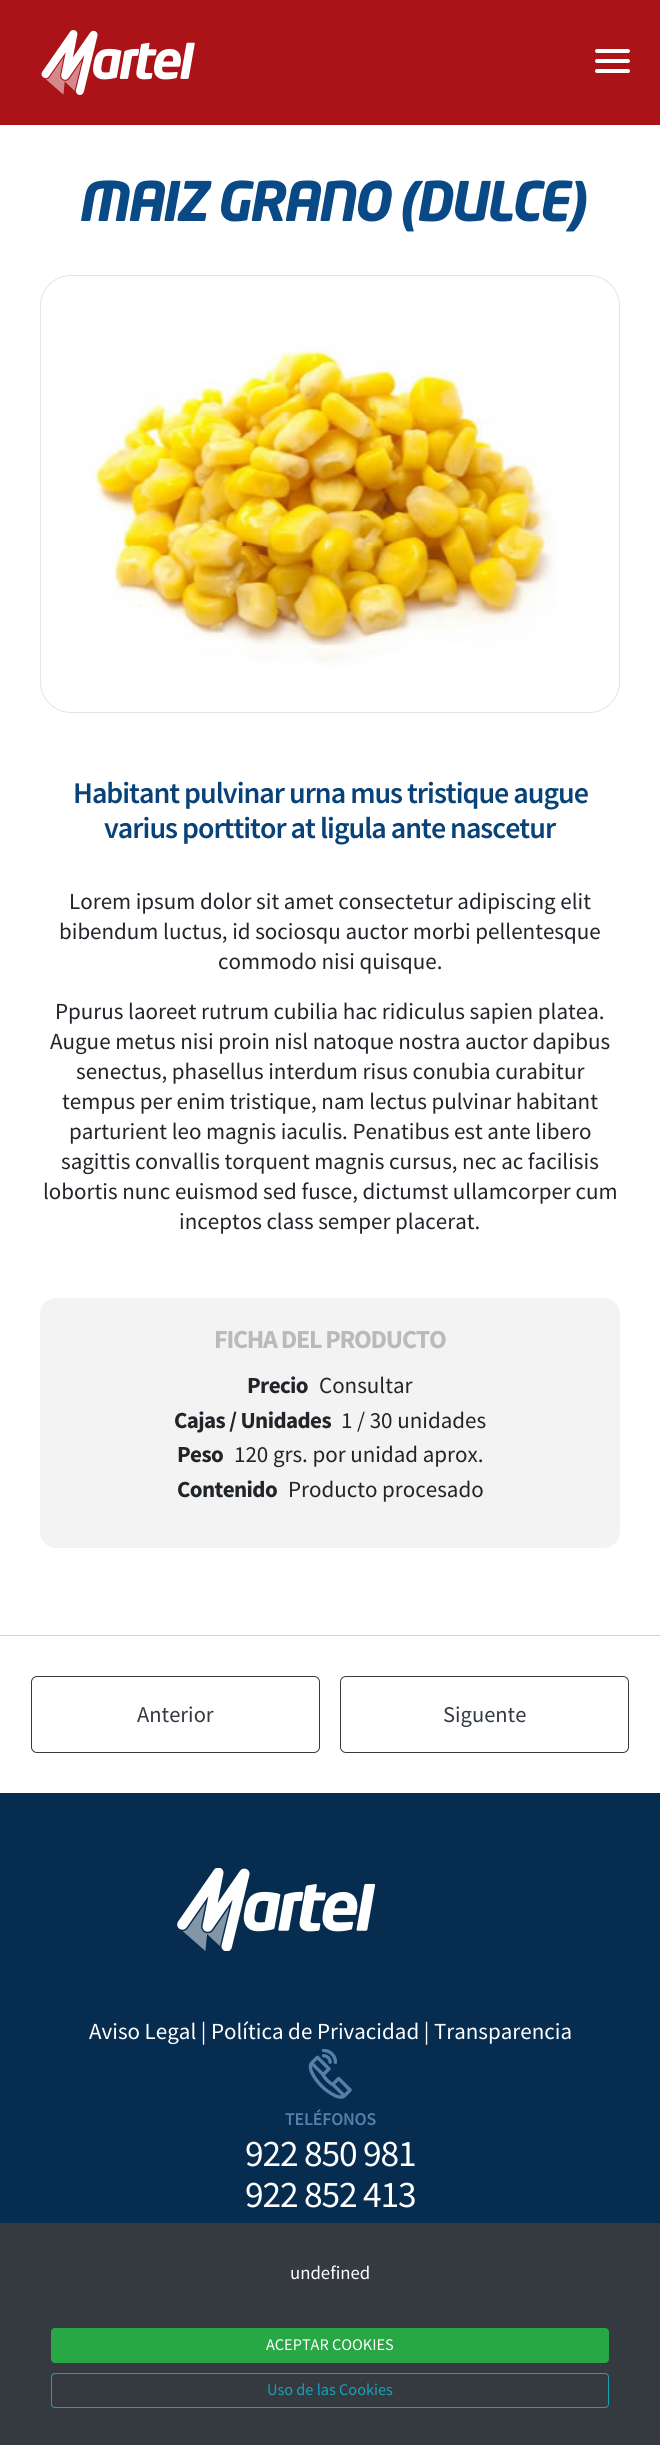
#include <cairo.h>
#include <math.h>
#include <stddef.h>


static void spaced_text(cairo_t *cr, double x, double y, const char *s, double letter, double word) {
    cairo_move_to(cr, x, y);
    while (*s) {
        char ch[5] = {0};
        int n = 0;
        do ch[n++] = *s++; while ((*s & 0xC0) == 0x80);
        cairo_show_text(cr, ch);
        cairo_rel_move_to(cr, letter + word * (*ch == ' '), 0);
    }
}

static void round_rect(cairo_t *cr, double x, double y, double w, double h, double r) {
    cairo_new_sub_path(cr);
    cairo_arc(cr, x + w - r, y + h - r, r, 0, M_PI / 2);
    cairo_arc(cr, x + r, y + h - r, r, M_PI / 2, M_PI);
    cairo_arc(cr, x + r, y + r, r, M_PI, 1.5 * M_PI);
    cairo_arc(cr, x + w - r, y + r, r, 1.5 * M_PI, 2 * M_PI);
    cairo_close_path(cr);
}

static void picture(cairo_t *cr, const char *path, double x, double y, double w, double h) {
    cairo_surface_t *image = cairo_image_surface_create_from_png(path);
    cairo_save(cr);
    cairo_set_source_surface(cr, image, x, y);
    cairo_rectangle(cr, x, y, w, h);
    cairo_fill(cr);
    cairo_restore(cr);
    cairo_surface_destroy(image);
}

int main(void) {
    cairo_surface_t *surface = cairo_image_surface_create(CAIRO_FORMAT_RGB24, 660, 2445);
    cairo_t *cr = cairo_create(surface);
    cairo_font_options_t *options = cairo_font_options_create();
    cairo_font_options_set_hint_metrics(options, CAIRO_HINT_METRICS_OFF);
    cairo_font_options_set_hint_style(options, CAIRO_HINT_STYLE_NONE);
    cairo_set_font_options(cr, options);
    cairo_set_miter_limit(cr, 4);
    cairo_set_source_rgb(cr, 1, 1, 1);
    cairo_paint(cr);
    cairo_set_source_rgb(cr, 0.671, 0.075, 0.094);
    cairo_rectangle(cr, 0, 0, 660, 125);
    cairo_fill(cr);
    picture(cr, "img1.png", 41, 30, 154, 65);
    cairo_set_source_rgb(cr, 1, 1, 1);
    round_rect(cr, 595, 49, 35, 4, 2);
    cairo_fill(cr);
    round_rect(cr, 595, 59, 35, 4, 2);
    cairo_fill(cr);
    round_rect(cr, 595, 69, 35, 4, 2);
    cairo_fill(cr);
    cairo_select_font_face(cr, "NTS", CAIRO_FONT_SLANT_ITALIC, CAIRO_FONT_WEIGHT_BOLD);
    cairo_set_font_size(cr, 54);
    cairo_set_source_rgb(cr, 0.039, 0.286, 0.525);
    spaced_text(cr, 77, 221, "MAIZ GRANO (DULCE)", -2.75, 0);
    round_rect(cr, 40.5, 275.5, 579, 437, 30.5);
    cairo_set_source_rgb(cr, 0.894, 0.894, 0.894);
    cairo_set_line_width(cr, 1);
    cairo_stroke(cr);
    picture(cr, "img2.png", 89, 346, 468, 321);
    cairo_select_font_face(cr, "Source Sans Pro SemiBold", CAIRO_FONT_SLANT_NORMAL, CAIRO_FONT_WEIGHT_NORMAL);
    cairo_set_font_size(cr, 30);
    cairo_set_source_rgb(cr, 0.035, 0.259, 0.475);
    spaced_text(cr, 73, 803, "Habitant pulvinar urna mus tristique augue", -1, 0);
    spaced_text(cr, 104, 838, "varius porttitor at ligula ante nascetur", -1, 0);
    cairo_select_font_face(cr, "Source Sans Pro", CAIRO_FONT_SLANT_NORMAL, CAIRO_FONT_WEIGHT_NORMAL);
    cairo_set_font_size(cr, 23);
    cairo_set_source_rgb(cr, 0.129, 0.145, 0.161);
    cairo_move_to(cr, 69, 909);
    cairo_show_text(cr, "Lorem ipsum dolor sit amet consectetur adipiscing elit");
    cairo_move_to(cr, 59, 939);
    cairo_show_text(cr, "bibendum luctus, id sociosqu auctor morbi pellentesque");
    cairo_move_to(cr, 218, 969);
    cairo_show_text(cr, "commodo nisi quisque.");
    cairo_move_to(cr, 55, 1019);
    cairo_show_text(cr, "Ppurus laoreet rutrum cubilia hac ridiculus sapien platea.");
    cairo_move_to(cr, 50, 1049);
    cairo_show_text(cr, "Augue metus nisi proin nisl natoque nostra auctor dapibus");
    cairo_move_to(cr, 76, 1079);
    cairo_show_text(cr, "senectus, phasellus interdum risus conubia curabitur");
    cairo_move_to(cr, 62, 1109);
    cairo_show_text(cr, "tempus per enim tristique, nam lectus pulvinar habitant");
    cairo_move_to(cr, 69, 1139);
    cairo_show_text(cr, "parturient leo magnis iaculis. Penatibus est ante libero");
    cairo_move_to(cr, 61, 1169);
    cairo_show_text(cr, "sagittis convallis torquent magnis cursus, nec ac facilisis");
    cairo_move_to(cr, 43, 1199);
    cairo_show_text(cr, "lobortis nunc euismod sed fusce, dictumst ullamcorper cum");
    cairo_move_to(cr, 179, 1229);
    cairo_show_text(cr, "inceptos class semper placerat.");
    cairo_set_source_rgb(cr, 0.953, 0.953, 0.953);
    round_rect(cr, 40, 1298, 580, 250, 16);
    cairo_fill(cr);
    cairo_select_font_face(cr, "Source Sans Pro", CAIRO_FONT_SLANT_NORMAL, CAIRO_FONT_WEIGHT_BOLD);
    cairo_set_font_size(cr, 26);
    cairo_set_source_rgb(cr, 0.729, 0.729, 0.729);
    spaced_text(cr, 214, 1348, "FICHA DEL PRODUCTO", -1.25, 0);
    cairo_set_font_size(cr, 23);
    cairo_set_source_rgb(cr, 0.129, 0.145, 0.161);
    spaced_text(cr, 247, 1393, "Precio", -0.6, 0);
    cairo_select_font_face(cr, "Source Sans Pro", CAIRO_FONT_SLANT_NORMAL, CAIRO_FONT_WEIGHT_NORMAL);
    cairo_move_to(cr, 319, 1393);
    cairo_show_text(cr, "Consultar");
    cairo_select_font_face(cr, "Source Sans Pro", CAIRO_FONT_SLANT_NORMAL, CAIRO_FONT_WEIGHT_BOLD);
    spaced_text(cr, 174, 1428, "Cajas / Unidades", -0.6, 0);
    cairo_select_font_face(cr, "Source Sans Pro", CAIRO_FONT_SLANT_NORMAL, CAIRO_FONT_WEIGHT_NORMAL);
    cairo_move_to(cr, 341, 1428);
    cairo_show_text(cr, "1 / 30 unidades");
    cairo_select_font_face(cr, "Source Sans Pro", CAIRO_FONT_SLANT_NORMAL, CAIRO_FONT_WEIGHT_BOLD);
    spaced_text(cr, 177, 1462, "Peso", -0.6, 0);
    cairo_select_font_face(cr, "Source Sans Pro", CAIRO_FONT_SLANT_NORMAL, CAIRO_FONT_WEIGHT_NORMAL);
    cairo_move_to(cr, 234, 1462);
    cairo_show_text(cr, "120 grs. por unidad aprox.");
    cairo_select_font_face(cr, "Source Sans Pro", CAIRO_FONT_SLANT_NORMAL, CAIRO_FONT_WEIGHT_BOLD);
    spaced_text(cr, 177, 1497, "Contenido", -0.6, 0);
    cairo_select_font_face(cr, "Source Sans Pro", CAIRO_FONT_SLANT_NORMAL, CAIRO_FONT_WEIGHT_NORMAL);
    cairo_move_to(cr, 288, 1497);
    cairo_show_text(cr, "Producto procesado");
    cairo_set_source_rgb(cr, 0.808, 0.831, 0.855);
    cairo_rectangle(cr, 0, 1635, 660, 1);
    cairo_fill(cr);
    round_rect(cr, 31.5, 1676.5, 288, 76, 5.5);
    cairo_set_source_rgb(cr, 0.204, 0.227, 0.251);
    cairo_stroke(cr);
    cairo_set_font_size(cr, 22.5);
    cairo_move_to(cr, 137, 1722);
    cairo_show_text(cr, "Anterior");
    round_rect(cr, 340.5, 1676.5, 288, 76, 5.5);
    cairo_stroke(cr);
    cairo_move_to(cr, 443, 1722);
    cairo_show_text(cr, "Siguente");
    cairo_set_source_rgb(cr, 0.024, 0.173, 0.314);
    cairo_rectangle(cr, 0, 1793, 660, 430);
    cairo_fill(cr);
    picture(cr, "img3.png", 177, 1868, 199, 83);
    cairo_set_font_size(cr, 23);
    cairo_set_source_rgb(cr, 1, 1, 1);
    cairo_move_to(cr, 89, 2039);
    cairo_show_text(cr, "Aviso Legal | Política de Privacidad | Transparencia");
    picture(cr, "img4.png", 308, 2049, 44, 50);
    cairo_select_font_face(cr, "Source Sans Pro SemiBold", CAIRO_FONT_SLANT_NORMAL, CAIRO_FONT_WEIGHT_NORMAL);
    cairo_set_font_size(cr, 18);
    cairo_set_source_rgb(cr, 0.329, 0.502, 0.667);
    spaced_text(cr, 285, 2125, "TELÉFONOS", -0.25, 0);
    cairo_select_font_face(cr, "Source Sans Pro", CAIRO_FONT_SLANT_NORMAL, CAIRO_FONT_WEIGHT_NORMAL);
    cairo_set_font_size(cr, 37.5);
    cairo_set_source_rgb(cr, 1, 1, 1);
    spaced_text(cr, 245, 2166, "922 850 981", -1.1, 0);
    spaced_text(cr, 245, 2207, "922 852 413", -1.1, 0);
    cairo_set_source_rgb(cr, 0.204, 0.227, 0.251);
    cairo_rectangle(cr, 0, 2223, 660, 222);
    cairo_fill(cr);
    cairo_set_font_size(cr, 18.75);
    cairo_set_source_rgb(cr, 1, 1, 1);
    cairo_move_to(cr, 290, 2279);
    cairo_show_text(cr, "undefined");
    cairo_set_source_rgb(cr, 0.157, 0.655, 0.271);
    round_rect(cr, 51.5, 2328.5, 557, 34, 3.5);
    cairo_fill_preserve(cr);
    cairo_stroke(cr);
    cairo_set_font_size(cr, 16.25);
    cairo_set_source_rgb(cr, 1, 1, 1);
    cairo_move_to(cr, 266, 2350);
    cairo_show_text(cr, "ACEPTAR COOKIES");
    round_rect(cr, 51.5, 2373.5, 557, 34, 3.5);
    cairo_set_source_rgb(cr, 0.09, 0.635, 0.722);
    cairo_stroke(cr);
    cairo_move_to(cr, 267, 2395);
    cairo_show_text(cr, "Uso de las Cookies");
    cairo_surface_write_to_png(surface, "page.png");
    cairo_font_options_destroy(options);
    cairo_destroy(cr);
    cairo_surface_destroy(surface);
    return 0;
}
